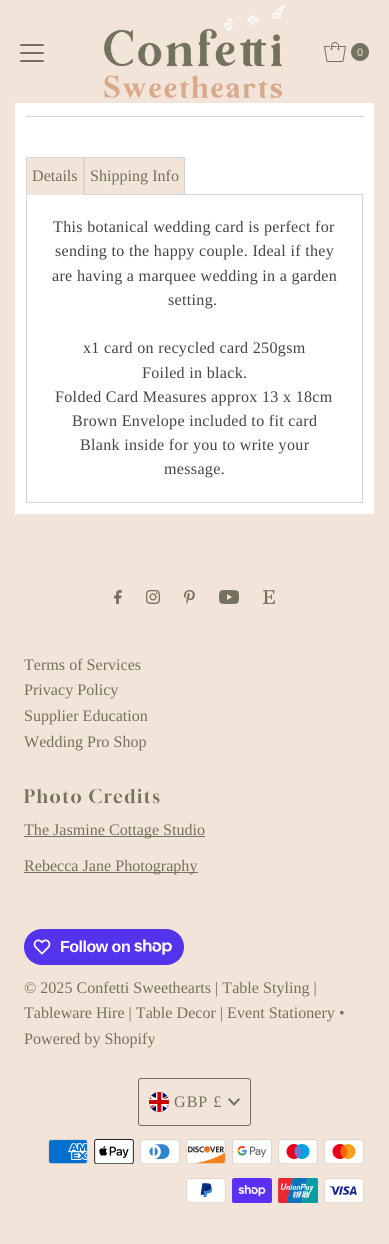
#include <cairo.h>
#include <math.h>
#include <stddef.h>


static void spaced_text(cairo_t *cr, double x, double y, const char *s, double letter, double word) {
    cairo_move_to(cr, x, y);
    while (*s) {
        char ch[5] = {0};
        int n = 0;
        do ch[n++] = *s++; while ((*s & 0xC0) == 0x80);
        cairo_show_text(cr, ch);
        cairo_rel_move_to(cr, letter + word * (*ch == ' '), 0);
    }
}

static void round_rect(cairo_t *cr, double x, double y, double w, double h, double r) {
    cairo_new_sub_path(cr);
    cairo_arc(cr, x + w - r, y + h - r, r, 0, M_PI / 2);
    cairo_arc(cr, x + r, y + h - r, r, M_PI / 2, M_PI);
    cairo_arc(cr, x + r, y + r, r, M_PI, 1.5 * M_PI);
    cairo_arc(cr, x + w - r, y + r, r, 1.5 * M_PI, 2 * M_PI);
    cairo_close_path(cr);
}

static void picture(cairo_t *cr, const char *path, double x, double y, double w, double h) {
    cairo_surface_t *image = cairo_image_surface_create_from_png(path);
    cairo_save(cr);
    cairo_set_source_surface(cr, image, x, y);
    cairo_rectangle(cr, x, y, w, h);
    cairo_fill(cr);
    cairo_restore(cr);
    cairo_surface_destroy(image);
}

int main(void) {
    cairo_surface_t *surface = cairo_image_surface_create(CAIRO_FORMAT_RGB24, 389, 1244);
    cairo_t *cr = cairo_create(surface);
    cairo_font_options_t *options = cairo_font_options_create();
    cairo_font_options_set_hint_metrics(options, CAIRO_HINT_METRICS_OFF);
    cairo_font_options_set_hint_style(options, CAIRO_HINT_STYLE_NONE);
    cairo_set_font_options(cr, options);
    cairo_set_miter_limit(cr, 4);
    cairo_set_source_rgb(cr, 0.949, 0.894, 0.847);
    cairo_paint(cr);
    picture(cr, "img1.png", 20, 44, 24, 18);
    picture(cr, "img2.png", 104, 5, 181, 93);
    picture(cr, "img3.png", 324, 42, 22, 20);
    cairo_set_source_rgb(cr, 0.451, 0.443, 0.373);
    cairo_arc(cr, 360, 52, 9, 0, 2 * M_PI);
    cairo_fill(cr);
    cairo_select_font_face(cr, "Liberation Sans", CAIRO_FONT_SLANT_NORMAL, CAIRO_FONT_WEIGHT_NORMAL);
    cairo_set_font_size(cr, 11);
    cairo_set_source_rgb(cr, 0.949, 0.894, 0.847);
    cairo_move_to(cr, 357, 56);
    cairo_show_text(cr, "0");
    cairo_set_source_rgb(cr, 1, 1, 1);
    cairo_rectangle(cr, 15, 103, 359, 411);
    cairo_fill(cr);
    cairo_set_source_rgb(cr, 0.835, 0.835, 0.835);
    cairo_rectangle(cr, 26, 116, 337, 1);
    cairo_fill(cr);
    cairo_rectangle(cr, 26.5, 194.5, 336, 308);
    cairo_set_line_width(cr, 1);
    cairo_stroke(cr);
    cairo_set_source_rgb(cr, 0.949, 0.894, 0.847);
    cairo_rectangle(cr, 27, 158, 56, 37);
    cairo_fill(cr);
    cairo_set_source_rgb(cr, 0.835, 0.835, 0.835);
    cairo_rectangle(cr, 26, 157, 159, 1);
    cairo_fill(cr);
    cairo_rectangle(cr, 26, 157, 1, 37);
    cairo_fill(cr);
    cairo_select_font_face(cr, "Liberation Serif", CAIRO_FONT_SLANT_NORMAL, CAIRO_FONT_WEIGHT_NORMAL);
    cairo_set_font_size(cr, 16.1);
    cairo_set_source_rgb(cr, 0.451, 0.443, 0.373);
    cairo_move_to(cr, 32, 181);
    cairo_show_text(cr, "Details");
    cairo_set_source_rgb(cr, 0.949, 0.894, 0.847);
    cairo_rectangle(cr, 85, 158, 99, 36);
    cairo_fill(cr);
    cairo_set_source_rgb(cr, 0.835, 0.835, 0.835);
    cairo_rectangle(cr, 184, 157, 1, 37);
    cairo_fill(cr);
    cairo_rectangle(cr, 83, 157, 2, 37);
    cairo_fill(cr);
    cairo_set_source_rgb(cr, 0.451, 0.443, 0.373);
    cairo_move_to(cr, 90, 181);
    cairo_show_text(cr, "Shipping Info");
    cairo_set_source_rgb(cr, 0.267, 0.267, 0.267);
    spaced_text(cr, 53, 232, "This botanical wedding card is perfect for", 0.3, 0);
    spaced_text(cr, 55, 256, "sending to the happy couple. Ideal if they", 0.3, 0);
    spaced_text(cr, 52, 281, "are having a marquee wedding in a garden", 0.3, 0);
    spaced_text(cr, 168, 305, "setting.", 0.3, 0);
    spaced_text(cr, 83, 353, "x1 card on recycled card 250gsm", 0.3, 0);
    spaced_text(cr, 142, 378, "Foiled in black.", 0.3, 0);
    spaced_text(cr, 55, 402, "Folded Card Measures approx 13 x 18cm", 0.3, 0);
    spaced_text(cr, 72, 426, "Brown Envelope included to fit card", 0.3, 0);
    spaced_text(cr, 80, 450, "Blank inside for you to write your", 0.3, 0);
    spaced_text(cr, 164, 474, "message.", 0.3, 0);
    picture(cr, "img4.png", 114, 590, 8, 14);
    picture(cr, "img5.png", 146, 590, 14, 14);
    picture(cr, "img6.png", 184, 590, 11, 14);
    picture(cr, "img7.png", 219, 590, 20, 14);
    picture(cr, "img8.png", 263, 590, 12, 14);
    cairo_set_source_rgb(cr, 0.451, 0.443, 0.373);
    cairo_move_to(cr, 24, 670);
    cairo_show_text(cr, "Terms of Services");
    cairo_move_to(cr, 24, 695);
    cairo_show_text(cr, "Privacy Policy");
    cairo_move_to(cr, 24, 721);
    cairo_show_text(cr, "Supplier Education");
    cairo_move_to(cr, 24, 747);
    cairo_show_text(cr, "Wedding Pro Shop");
    cairo_select_font_face(cr, "Gloock", CAIRO_FONT_SLANT_NORMAL, CAIRO_FONT_WEIGHT_NORMAL);
    cairo_set_font_size(cr, 18.25);
    spaced_text(cr, 24, 803, "Photo Credits", 1.4, 0);
    cairo_rectangle(cr, 24, 836, 181, 1);
    cairo_fill(cr);
    cairo_select_font_face(cr, "Liberation Serif", CAIRO_FONT_SLANT_NORMAL, CAIRO_FONT_WEIGHT_NORMAL);
    cairo_set_font_size(cr, 16.1);
    cairo_move_to(cr, 24, 835);
    cairo_show_text(cr, "The Jasmine Cottage Studio");
    cairo_rectangle(cr, 24, 872, 174, 1);
    cairo_fill(cr);
    cairo_move_to(cr, 24, 871);
    cairo_show_text(cr, "Rebecca Jane Photography");
    cairo_set_source_rgb(cr, 0.329, 0.2, 0.922);
    round_rect(cr, 24, 929, 160, 36, 18);
    cairo_fill(cr);
    picture(cr, "img9.png", 33, 939, 18, 16);
    cairo_select_font_face(cr, "Liberation Sans", CAIRO_FONT_SLANT_NORMAL, CAIRO_FONT_WEIGHT_BOLD);
    cairo_set_font_size(cr, 16);
    cairo_set_source_rgb(cr, 1, 1, 1);
    spaced_text(cr, 60, 952, "Follow on", -0.5, 0);
    picture(cr, "img10.png", 134, 939, 38, 16);
    cairo_select_font_face(cr, "Liberation Serif", CAIRO_FONT_SLANT_NORMAL, CAIRO_FONT_WEIGHT_NORMAL);
    cairo_set_font_size(cr, 16.1);
    cairo_set_source_rgb(cr, 0.451, 0.443, 0.373);
    cairo_move_to(cr, 24, 993);
    cairo_show_text(cr, "© 2025 Confetti Sweethearts | Table Styling |");
    cairo_move_to(cr, 24, 1018);
    cairo_show_text(cr, "Tableware Hire | Table Decor | Event Stationery •");
    cairo_move_to(cr, 24, 1044);
    cairo_show_text(cr, "Powered by Shopify");
    round_rect(cr, 138.5, 1078.5, 112, 47, 2.5);
    cairo_stroke(cr);
    picture(cr, "img11.png", 149, 1092, 20, 20);
    spaced_text(cr, 174, 1107, "GBP £", 1, 0);
    picture(cr, "img12.png", 228, 1098, 12, 8);
    picture(cr, "img13.png", 48, 1139, 40, 25);
    picture(cr, "img14.png", 94, 1139, 40, 25);
    picture(cr, "img15.png", 140, 1139, 40, 25);
    picture(cr, "img16.png", 186, 1139, 40, 25);
    picture(cr, "img17.png", 232, 1139, 40, 25);
    picture(cr, "img18.png", 278, 1139, 40, 25);
    picture(cr, "img19.png", 324, 1139, 40, 25);
    picture(cr, "img20.png", 186, 1178, 40, 25);
    picture(cr, "img21.png", 232, 1178, 40, 25);
    picture(cr, "img22.png", 278, 1178, 40, 25);
    picture(cr, "img23.png", 324, 1178, 40, 25);
    cairo_surface_write_to_png(surface, "page.png");
    cairo_font_options_destroy(options);
    cairo_destroy(cr);
    cairo_surface_destroy(surface);
    return 0;
}
